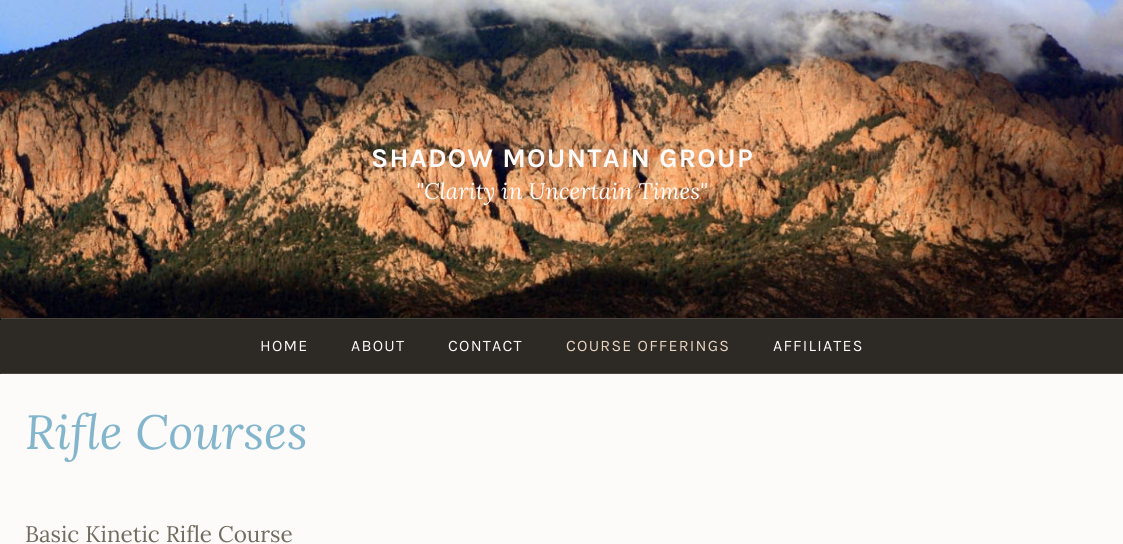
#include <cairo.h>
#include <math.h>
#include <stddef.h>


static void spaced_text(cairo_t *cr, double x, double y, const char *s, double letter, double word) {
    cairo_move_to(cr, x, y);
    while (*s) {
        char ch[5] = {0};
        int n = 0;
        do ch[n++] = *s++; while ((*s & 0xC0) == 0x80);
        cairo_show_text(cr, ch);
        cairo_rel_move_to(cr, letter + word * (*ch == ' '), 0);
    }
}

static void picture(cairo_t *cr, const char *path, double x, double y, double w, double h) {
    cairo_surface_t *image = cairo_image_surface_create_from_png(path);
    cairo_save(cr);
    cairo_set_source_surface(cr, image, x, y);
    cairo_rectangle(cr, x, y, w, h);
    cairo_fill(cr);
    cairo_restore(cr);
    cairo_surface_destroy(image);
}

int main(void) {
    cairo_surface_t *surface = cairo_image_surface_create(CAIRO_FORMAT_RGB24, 1123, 544);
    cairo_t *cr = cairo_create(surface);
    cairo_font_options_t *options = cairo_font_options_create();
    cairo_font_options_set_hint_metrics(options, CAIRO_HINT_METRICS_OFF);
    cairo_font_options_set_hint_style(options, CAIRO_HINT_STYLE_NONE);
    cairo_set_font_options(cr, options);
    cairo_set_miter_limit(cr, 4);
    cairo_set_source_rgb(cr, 0.988, 0.984, 0.98);
    cairo_paint(cr);
    cairo_set_source_rgb(cr, 0.176, 0.165, 0.149);
    cairo_rectangle(cr, 0, 320, 1, 54);
    cairo_fill(cr);
    picture(cr, "img1.png", 0, 0, 1123, 320);
    cairo_select_font_face(cr, "Karla", CAIRO_FONT_SLANT_NORMAL, CAIRO_FONT_WEIGHT_BOLD);
    cairo_set_font_size(cr, 27);
    cairo_set_source_rgb(cr, 0.988, 0.984, 0.976);
    spaced_text(cr, 371, 167, "SHADOW MOUNTAIN GROUP", 1.25, 0);
    cairo_select_font_face(cr, "Lora", CAIRO_FONT_SLANT_ITALIC, CAIRO_FONT_WEIGHT_NORMAL);
    cairo_set_font_size(cr, 22.5);
    cairo_move_to(cr, 416, 199);
    cairo_show_text(cr, "\"Clarity in Uncertain Times\"");
    cairo_set_source_rgb(cr, 0.176, 0.165, 0.149);
    cairo_rectangle(cr, 1, 319, 1122, 54);
    cairo_fill(cr);
    cairo_set_source_rgb(cr, 0.286, 0.267, 0.239);
    cairo_rectangle(cr, 1, 318, 1122, 1);
    cairo_fill(cr);
    cairo_rectangle(cr, 1, 373, 1122, 1);
    cairo_fill(cr);
    cairo_select_font_face(cr, "Karla", CAIRO_FONT_SLANT_NORMAL, CAIRO_FONT_WEIGHT_NORMAL);
    cairo_set_font_size(cr, 16);
    cairo_set_source_rgb(cr, 0.988, 0.984, 0.976);
    spaced_text(cr, 260, 351, "HOME", 1.25, 0);
    spaced_text(cr, 351, 351, "ABOUT", 1.25, 0);
    spaced_text(cr, 448, 351, "CONTACT", 1.25, 0);
    cairo_set_source_rgb(cr, 0.914, 0.835, 0.753);
    spaced_text(cr, 566, 351, "COURSE OFFERINGS", 1.25, 0);
    cairo_set_source_rgb(cr, 0.988, 0.984, 0.976);
    spaced_text(cr, 773, 351, "AFFILIATES", 1.25, 0);
    cairo_select_font_face(cr, "Lora", CAIRO_FONT_SLANT_ITALIC, CAIRO_FONT_WEIGHT_NORMAL);
    cairo_set_font_size(cr, 48);
    cairo_set_source_rgb(cr, 0.514, 0.714, 0.8);
    cairo_move_to(cr, 25, 449);
    cairo_show_text(cr, "Rifle Courses");
    cairo_select_font_face(cr, "Lora", CAIRO_FONT_SLANT_NORMAL, CAIRO_FONT_WEIGHT_NORMAL);
    cairo_set_font_size(cr, 22.5);
    cairo_set_source_rgb(cr, 0.447, 0.42, 0.376);
    cairo_move_to(cr, 25, 542);
    cairo_show_text(cr, "Basic Kinetic Rifle Course");
    cairo_surface_write_to_png(surface, "page.png");
    cairo_font_options_destroy(options);
    cairo_destroy(cr);
    cairo_surface_destroy(surface);
    return 0;
}
